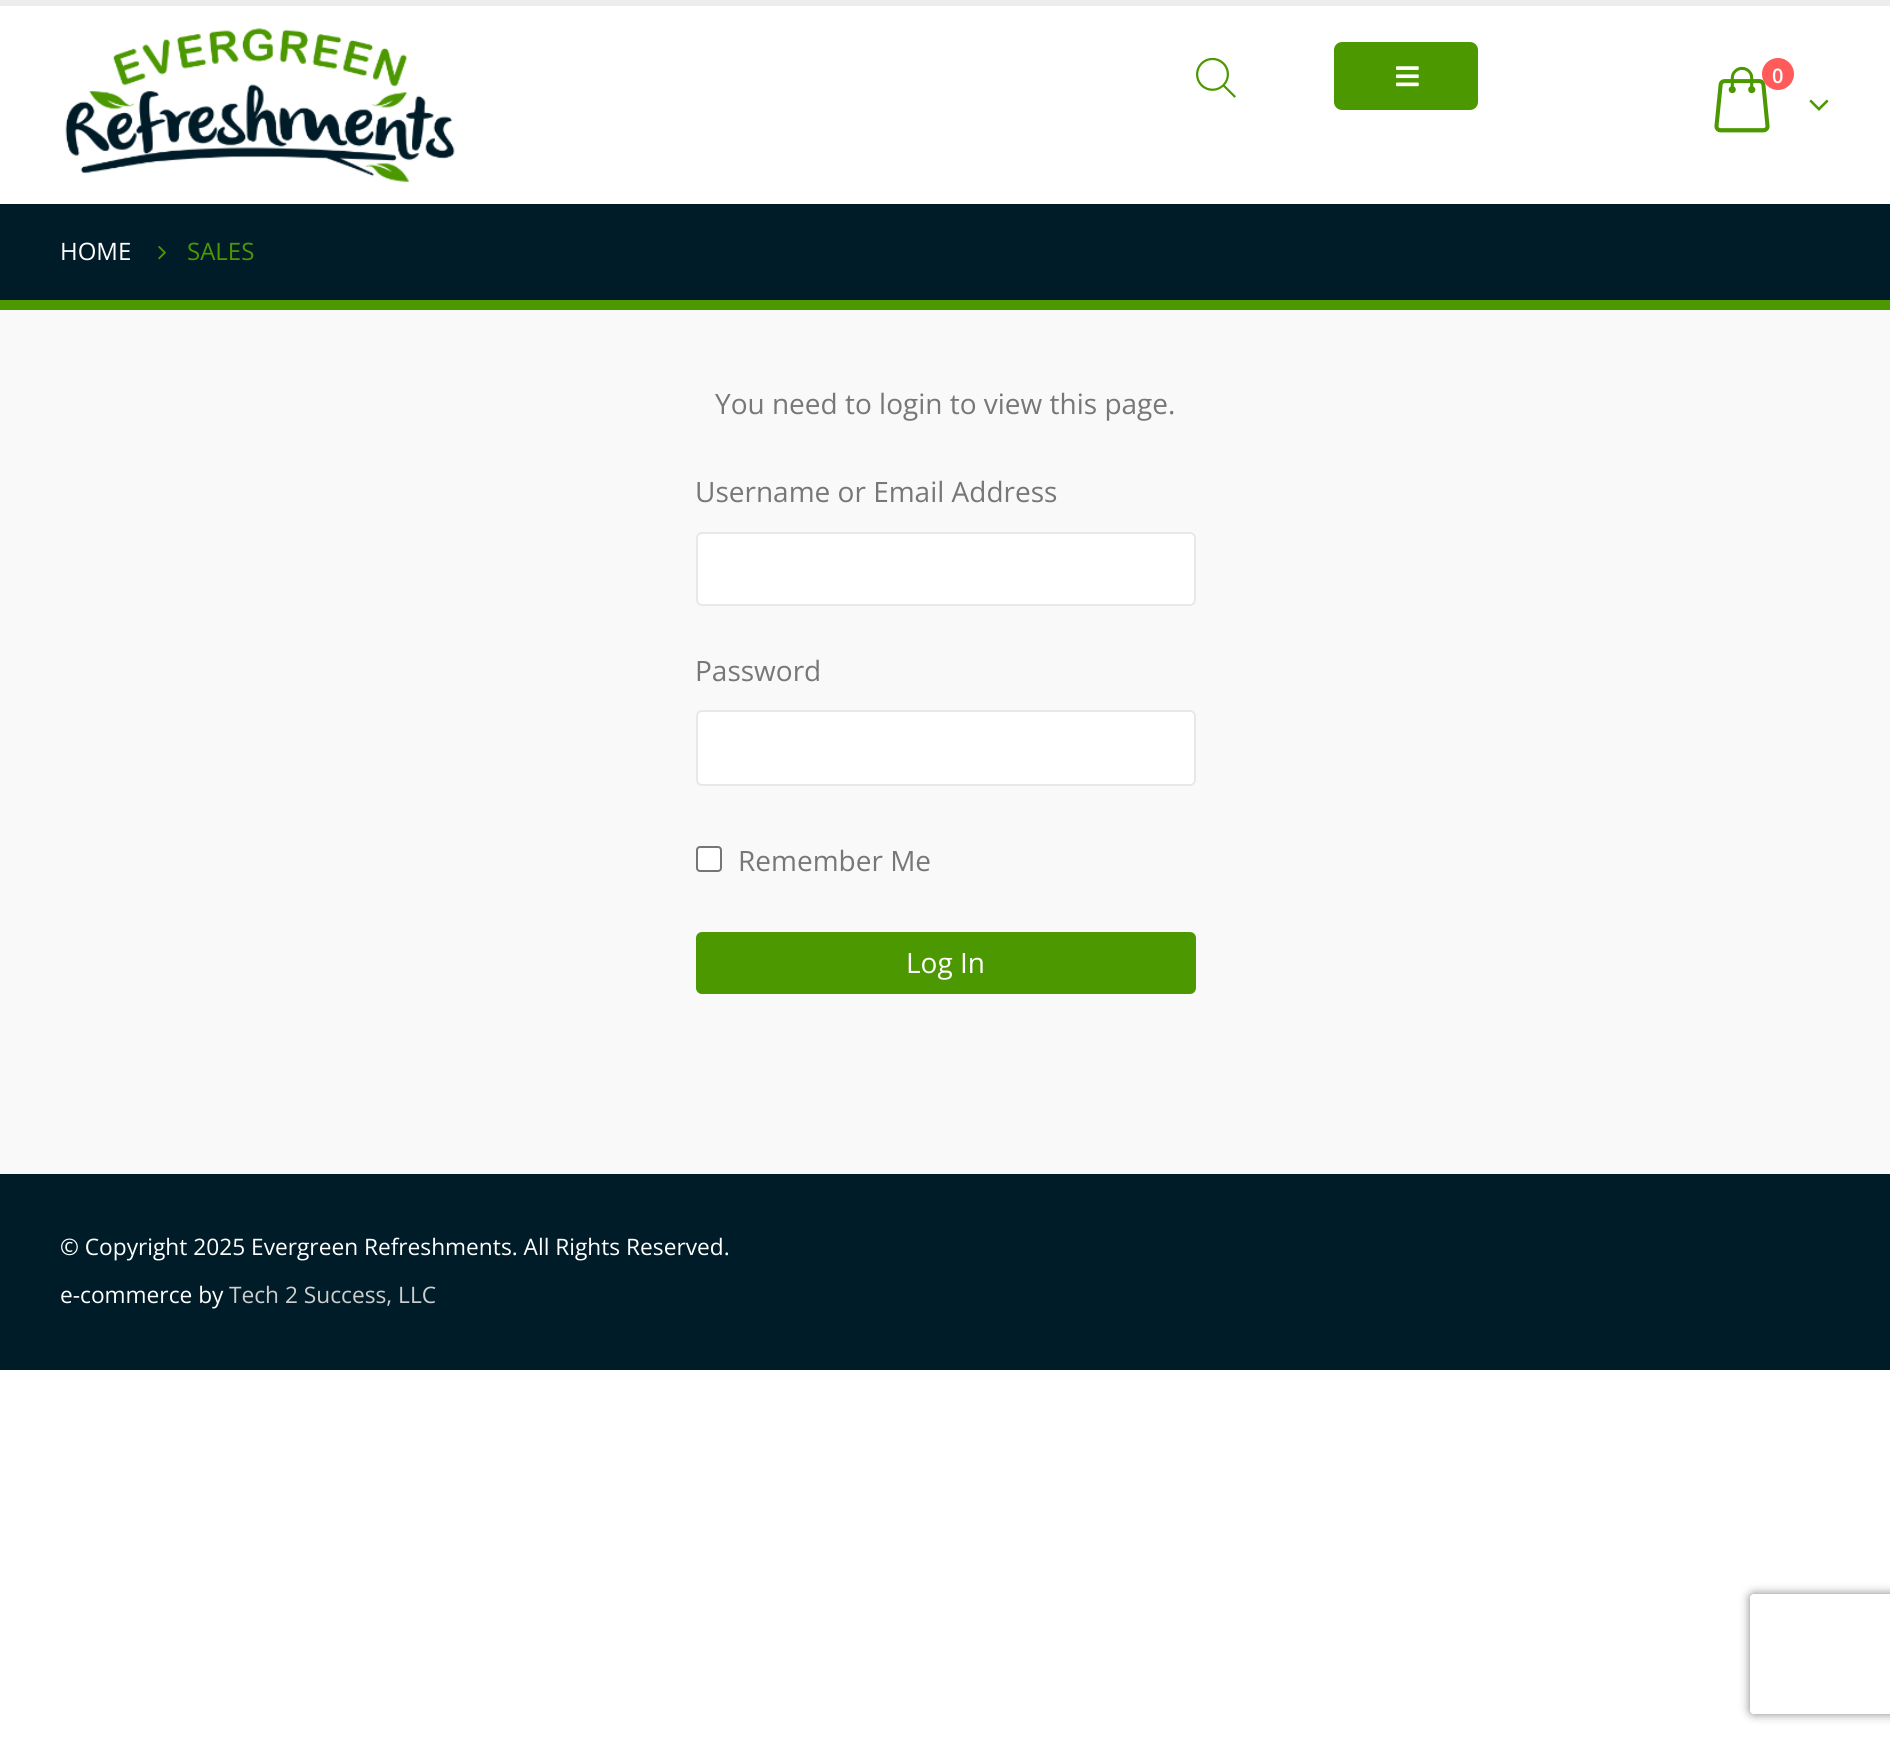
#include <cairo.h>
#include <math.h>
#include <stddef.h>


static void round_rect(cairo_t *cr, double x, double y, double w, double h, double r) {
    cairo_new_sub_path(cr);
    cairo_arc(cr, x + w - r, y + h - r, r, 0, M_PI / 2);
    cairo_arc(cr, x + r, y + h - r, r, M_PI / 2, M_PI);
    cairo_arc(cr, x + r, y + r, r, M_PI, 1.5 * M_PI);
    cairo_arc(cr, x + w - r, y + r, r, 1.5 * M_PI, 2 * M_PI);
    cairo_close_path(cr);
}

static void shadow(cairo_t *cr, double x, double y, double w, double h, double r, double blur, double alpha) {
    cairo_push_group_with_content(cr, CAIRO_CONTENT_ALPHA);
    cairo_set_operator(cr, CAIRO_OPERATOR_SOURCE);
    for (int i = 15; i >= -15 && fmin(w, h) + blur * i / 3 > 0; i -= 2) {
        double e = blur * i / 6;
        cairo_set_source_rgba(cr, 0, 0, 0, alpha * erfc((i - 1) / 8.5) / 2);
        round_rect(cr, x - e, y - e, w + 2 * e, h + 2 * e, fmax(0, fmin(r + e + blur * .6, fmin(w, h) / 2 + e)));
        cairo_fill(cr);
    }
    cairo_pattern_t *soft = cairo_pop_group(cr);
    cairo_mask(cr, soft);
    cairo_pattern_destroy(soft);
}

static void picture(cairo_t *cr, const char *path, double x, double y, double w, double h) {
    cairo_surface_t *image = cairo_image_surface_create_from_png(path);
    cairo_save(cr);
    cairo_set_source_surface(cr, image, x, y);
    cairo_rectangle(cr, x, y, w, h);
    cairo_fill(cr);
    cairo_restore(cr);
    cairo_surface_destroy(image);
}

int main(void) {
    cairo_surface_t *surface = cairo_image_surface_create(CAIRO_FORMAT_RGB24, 1890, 1742);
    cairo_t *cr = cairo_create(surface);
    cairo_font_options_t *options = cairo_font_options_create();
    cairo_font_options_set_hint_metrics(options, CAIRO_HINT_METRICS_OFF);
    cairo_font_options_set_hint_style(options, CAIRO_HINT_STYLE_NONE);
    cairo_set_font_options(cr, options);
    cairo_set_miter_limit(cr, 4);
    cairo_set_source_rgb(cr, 1, 1, 1);
    cairo_paint(cr);
    cairo_set_source_rgb(cr, 0.929, 0.929, 0.929);
    cairo_rectangle(cr, 0, 0, 1890, 6);
    cairo_fill(cr);
    picture(cr, "img1.png", 65, 28, 390, 155);
    picture(cr, "img2.png", 1196, 58, 40, 40);
    cairo_set_source_rgb(cr, 0.298, 0.596, 0);
    round_rect(cr, 1334, 42, 144, 68, 8);
    cairo_fill(cr);
    picture(cr, "img3.png", 1396, 66, 23, 21);
    picture(cr, "img4.png", 1714, 66, 56, 67);
    cairo_set_source_rgb(cr, 1, 0.357, 0.357);
    cairo_arc(cr, 1778, 74, 16, 0, 2 * M_PI);
    cairo_fill(cr);
    cairo_select_font_face(cr, "Open Sans SemiBold", CAIRO_FONT_SLANT_NORMAL, CAIRO_FONT_WEIGHT_NORMAL);
    cairo_set_font_size(cr, 20);
    cairo_set_source_rgb(cr, 1, 1, 1);
    cairo_move_to(cr, 1772, 83);
    cairo_show_text(cr, "0");
    picture(cr, "img5.png", 1809, 99, 20, 12);
    cairo_set_source_rgb(cr, 0, 0.11, 0.157);
    cairo_rectangle(cr, 0, 204, 1890, 96);
    cairo_fill(cr);
    cairo_set_source_rgb(cr, 0.298, 0.596, 0);
    cairo_rectangle(cr, 0, 300, 1890, 10);
    cairo_fill(cr);
    cairo_select_font_face(cr, "Open Sans", CAIRO_FONT_SLANT_NORMAL, CAIRO_FONT_WEIGHT_NORMAL);
    cairo_set_font_size(cr, 24);
    cairo_set_source_rgb(cr, 1, 1, 1);
    cairo_move_to(cr, 60, 260);
    cairo_show_text(cr, "HOME");
    picture(cr, "img6.png", 158, 246, 8, 14);
    cairo_set_source_rgb(cr, 0.298, 0.596, 0);
    cairo_move_to(cr, 187, 260);
    cairo_show_text(cr, "SALES");
    cairo_set_source_rgb(cr, 0.976, 0.976, 0.976);
    cairo_rectangle(cr, 0, 310, 1890, 864);
    cairo_fill(cr);
    cairo_set_font_size(cr, 28);
    cairo_set_source_rgb(cr, 0.467, 0.467, 0.467);
    cairo_move_to(cr, 715, 414);
    cairo_show_text(cr, "You need to login to view this page.");
    cairo_move_to(cr, 695, 502);
    cairo_show_text(cr, "Username or Email Address");
    cairo_set_source_rgb(cr, 1, 1, 1);
    round_rect(cr, 697, 533, 498, 72, 5);
    cairo_fill_preserve(cr);
    cairo_set_source_rgb(cr, 0.91, 0.91, 0.91);
    cairo_stroke(cr);
    cairo_set_source_rgb(cr, 0.467, 0.467, 0.467);
    cairo_move_to(cr, 695, 681);
    cairo_show_text(cr, "Password");
    cairo_set_source_rgb(cr, 1, 1, 1);
    round_rect(cr, 697, 711, 498, 74, 5);
    cairo_fill_preserve(cr);
    cairo_set_source_rgb(cr, 0.91, 0.91, 0.91);
    cairo_stroke(cr);
    cairo_set_source_rgb(cr, 1, 1, 1);
    round_rect(cr, 697, 847, 24, 24, 3);
    cairo_fill_preserve(cr);
    cairo_set_source_rgb(cr, 0.463, 0.463, 0.463);
    cairo_stroke(cr);
    cairo_set_source_rgb(cr, 0.467, 0.467, 0.467);
    cairo_move_to(cr, 738, 871);
    cairo_show_text(cr, "Remember Me");
    cairo_set_source_rgb(cr, 0.298, 0.596, 0);
    round_rect(cr, 696, 932, 500, 62, 6);
    cairo_fill(cr);
    cairo_set_source_rgb(cr, 1, 1, 1);
    cairo_move_to(cr, 906, 973);
    cairo_show_text(cr, "Log In");
    cairo_set_source_rgb(cr, 0, 0.11, 0.157);
    cairo_rectangle(cr, 0, 1174, 1890, 196);
    cairo_fill(cr);
    cairo_set_font_size(cr, 22.7);
    cairo_set_source_rgb(cr, 1, 1, 1);
    cairo_move_to(cr, 60, 1255);
    cairo_show_text(cr, "© Copyright 2025 Evergreen Refreshments. All Rights Reserved.");
    cairo_move_to(cr, 60, 1303);
    cairo_show_text(cr, "e-commerce by");
    cairo_set_source_rgb(cr, 0.808, 0.808, 0.808);
    cairo_move_to(cr, 229, 1303);
    cairo_show_text(cr, "Tech 2 Success, LLC");
    cairo_save(cr);
    cairo_set_fill_rule(cr, CAIRO_FILL_RULE_EVEN_ODD);
    cairo_new_path(cr);
    cairo_move_to(cr, 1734, 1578);
    cairo_line_to(cr, 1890, 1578);
    cairo_line_to(cr, 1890, 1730);
    cairo_line_to(cr, 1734, 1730);
    cairo_close_path(cr);
    cairo_move_to(cr, 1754, 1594);
    cairo_line_to(cr, 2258, 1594);
    cairo_curve_to(cr, 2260, 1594, 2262, 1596, 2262, 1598);
    cairo_line_to(cr, 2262, 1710);
    cairo_curve_to(cr, 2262, 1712, 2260, 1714, 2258, 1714);
    cairo_line_to(cr, 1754, 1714);
    cairo_curve_to(cr, 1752, 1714, 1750, 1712, 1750, 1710);
    cairo_line_to(cr, 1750, 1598);
    cairo_curve_to(cr, 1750, 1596, 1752, 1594, 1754, 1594);
    cairo_close_path(cr);
    cairo_clip(cr);
    cairo_set_source_rgb(cr, 0.502, 0.502, 0.502);
    shadow(cr, 1750, 1594, 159, 120, 4, 5, 1);
    cairo_restore(cr);
    cairo_surface_write_to_png(surface, "page.png");
    cairo_font_options_destroy(options);
    cairo_destroy(cr);
    cairo_surface_destroy(surface);
    return 0;
}
